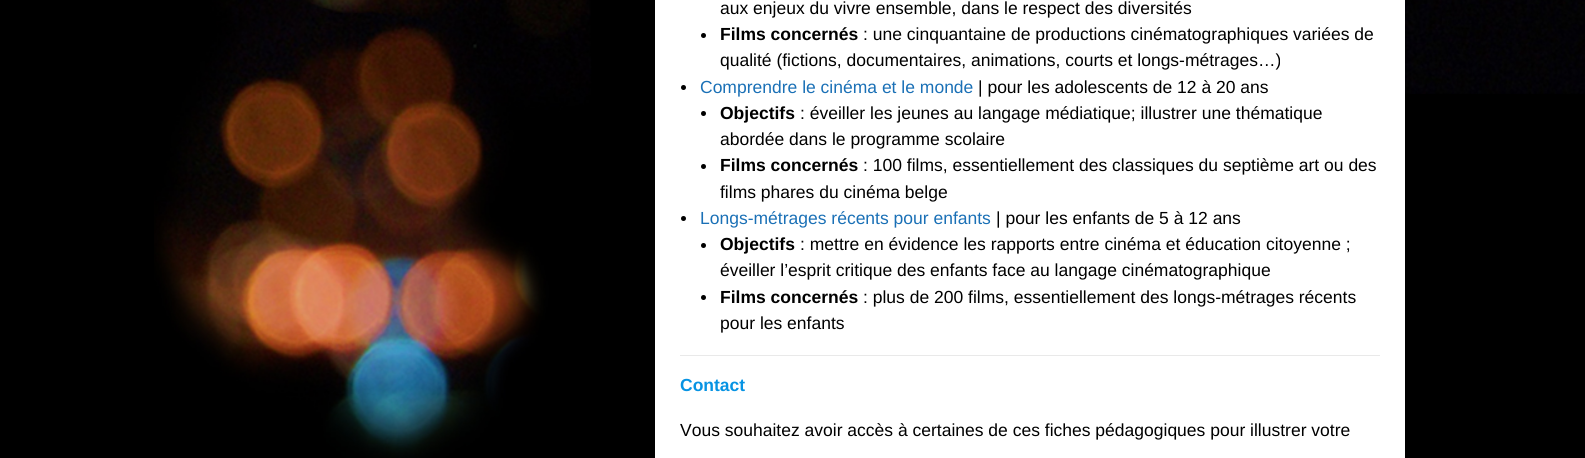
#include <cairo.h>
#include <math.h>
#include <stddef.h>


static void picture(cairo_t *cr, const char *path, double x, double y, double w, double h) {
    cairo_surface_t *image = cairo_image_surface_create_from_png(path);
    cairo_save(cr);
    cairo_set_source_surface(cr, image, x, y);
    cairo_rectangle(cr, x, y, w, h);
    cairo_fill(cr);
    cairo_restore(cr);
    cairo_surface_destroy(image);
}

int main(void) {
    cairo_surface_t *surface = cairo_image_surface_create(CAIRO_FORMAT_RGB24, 1585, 458);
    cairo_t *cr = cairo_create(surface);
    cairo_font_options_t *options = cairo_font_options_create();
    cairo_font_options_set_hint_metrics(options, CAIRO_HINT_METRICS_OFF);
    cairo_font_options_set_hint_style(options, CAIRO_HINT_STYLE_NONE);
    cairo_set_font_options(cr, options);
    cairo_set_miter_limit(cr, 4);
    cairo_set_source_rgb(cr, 0, 0, 0);
    cairo_paint(cr);
    picture(cr, "img1.png", 154, 0, 1431, 458);
    cairo_set_source_rgb(cr, 1, 1, 1);
    cairo_rectangle(cr, 655, 0, 750, 458);
    cairo_fill(cr);
    cairo_select_font_face(cr, "Liberation Sans", CAIRO_FONT_SLANT_NORMAL, CAIRO_FONT_WEIGHT_NORMAL);
    cairo_set_font_size(cr, 17.5);
    cairo_set_source_rgb(cr, 0, 0, 0);
    cairo_move_to(cr, 720, 14);
    cairo_show_text(cr, "aux enjeux du vivre ensemble, dans le respect des diversités");
    cairo_new_path(cr);
    cairo_arc(cr, 703.5, 35.5, 2.5, 0, 2 * M_PI);
    cairo_fill(cr);
    cairo_select_font_face(cr, "Liberation Sans", CAIRO_FONT_SLANT_NORMAL, CAIRO_FONT_WEIGHT_BOLD);
    cairo_move_to(cr, 720, 40);
    cairo_show_text(cr, "Films concernés");
    cairo_select_font_face(cr, "Liberation Sans", CAIRO_FONT_SLANT_NORMAL, CAIRO_FONT_WEIGHT_NORMAL);
    cairo_move_to(cr, 863, 40);
    cairo_show_text(cr, ": une cinquantaine de productions cinématographiques variées de");
    cairo_move_to(cr, 720, 66);
    cairo_show_text(cr, "qualité (fictions, documentaires, animations, courts et longs-métrages…)");
    cairo_new_path(cr);
    cairo_arc(cr, 683.5, 87.5, 2.5, 0, 2 * M_PI);
    cairo_fill(cr);
    cairo_set_source_rgb(cr, 0.102, 0.439, 0.714);
    cairo_move_to(cr, 700, 93);
    cairo_show_text(cr, "Comprendre le cinéma et le monde");
    cairo_set_source_rgb(cr, 0, 0, 0);
    cairo_move_to(cr, 978, 93);
    cairo_show_text(cr, "| pour les adolescents de 12 à 20 ans");
    cairo_new_path(cr);
    cairo_arc(cr, 703.5, 113.5, 2.5, 0, 2 * M_PI);
    cairo_fill(cr);
    cairo_select_font_face(cr, "Liberation Sans", CAIRO_FONT_SLANT_NORMAL, CAIRO_FONT_WEIGHT_BOLD);
    cairo_move_to(cr, 720, 119);
    cairo_show_text(cr, "Objectifs");
    cairo_select_font_face(cr, "Liberation Sans", CAIRO_FONT_SLANT_NORMAL, CAIRO_FONT_WEIGHT_NORMAL);
    cairo_move_to(cr, 800, 119);
    cairo_show_text(cr, ": éveiller les jeunes au langage médiatique; illustrer une thématique");
    cairo_move_to(cr, 720, 145);
    cairo_show_text(cr, "abordée dans le programme scolaire");
    cairo_new_path(cr);
    cairo_arc(cr, 703.5, 166.5, 2.5, 0, 2 * M_PI);
    cairo_fill(cr);
    cairo_select_font_face(cr, "Liberation Sans", CAIRO_FONT_SLANT_NORMAL, CAIRO_FONT_WEIGHT_BOLD);
    cairo_move_to(cr, 720, 171);
    cairo_show_text(cr, "Films concernés");
    cairo_select_font_face(cr, "Liberation Sans", CAIRO_FONT_SLANT_NORMAL, CAIRO_FONT_WEIGHT_NORMAL);
    cairo_move_to(cr, 863, 171);
    cairo_show_text(cr, ": 100 films, essentiellement des classiques du septième art ou des");
    cairo_move_to(cr, 720, 198);
    cairo_show_text(cr, "films phares du cinéma belge");
    cairo_new_path(cr);
    cairo_arc(cr, 683.5, 218.5, 2.5, 0, 2 * M_PI);
    cairo_fill(cr);
    cairo_set_source_rgb(cr, 0.102, 0.439, 0.714);
    cairo_move_to(cr, 700, 224);
    cairo_show_text(cr, "Longs-métrages récents pour enfants");
    cairo_set_source_rgb(cr, 0, 0, 0);
    cairo_move_to(cr, 996, 224);
    cairo_show_text(cr, "| pour les enfants de 5 à 12 ans");
    cairo_new_path(cr);
    cairo_arc(cr, 703.5, 245.5, 2.5, 0, 2 * M_PI);
    cairo_fill(cr);
    cairo_select_font_face(cr, "Liberation Sans", CAIRO_FONT_SLANT_NORMAL, CAIRO_FONT_WEIGHT_BOLD);
    cairo_move_to(cr, 720, 250);
    cairo_show_text(cr, "Objectifs");
    cairo_select_font_face(cr, "Liberation Sans", CAIRO_FONT_SLANT_NORMAL, CAIRO_FONT_WEIGHT_NORMAL);
    cairo_move_to(cr, 800, 250);
    cairo_show_text(cr, ": mettre en évidence les rapports entre cinéma et éducation citoyenne ;");
    cairo_move_to(cr, 720, 276);
    cairo_show_text(cr, "éveiller l’esprit critique des enfants face au langage cinématographique");
    cairo_new_path(cr);
    cairo_arc(cr, 703.5, 297.5, 2.5, 0, 2 * M_PI);
    cairo_fill(cr);
    cairo_select_font_face(cr, "Liberation Sans", CAIRO_FONT_SLANT_NORMAL, CAIRO_FONT_WEIGHT_BOLD);
    cairo_move_to(cr, 720, 303);
    cairo_show_text(cr, "Films concernés");
    cairo_select_font_face(cr, "Liberation Sans", CAIRO_FONT_SLANT_NORMAL, CAIRO_FONT_WEIGHT_NORMAL);
    cairo_move_to(cr, 863, 303);
    cairo_show_text(cr, ": plus de 200 films, essentiellement des longs-métrages récents");
    cairo_move_to(cr, 720, 329);
    cairo_show_text(cr, "pour les enfants");
    cairo_set_source_rgb(cr, 0.914, 0.914, 0.914);
    cairo_rectangle(cr, 680, 355, 700, 1);
    cairo_fill(cr);
    cairo_select_font_face(cr, "Liberation Sans", CAIRO_FONT_SLANT_NORMAL, CAIRO_FONT_WEIGHT_BOLD);
    cairo_set_source_rgb(cr, 0.024, 0.576, 0.89);
    cairo_move_to(cr, 680, 391);
    cairo_show_text(cr, "Contact");
    cairo_select_font_face(cr, "Liberation Sans", CAIRO_FONT_SLANT_NORMAL, CAIRO_FONT_WEIGHT_NORMAL);
    cairo_set_source_rgb(cr, 0, 0, 0);
    cairo_move_to(cr, 680, 436);
    cairo_show_text(cr, "Vous souhaitez avoir accès à certaines de ces fiches pédagogiques pour illustrer votre");
    cairo_surface_write_to_png(surface, "page.png");
    cairo_font_options_destroy(options);
    cairo_destroy(cr);
    cairo_surface_destroy(surface);
    return 0;
}
